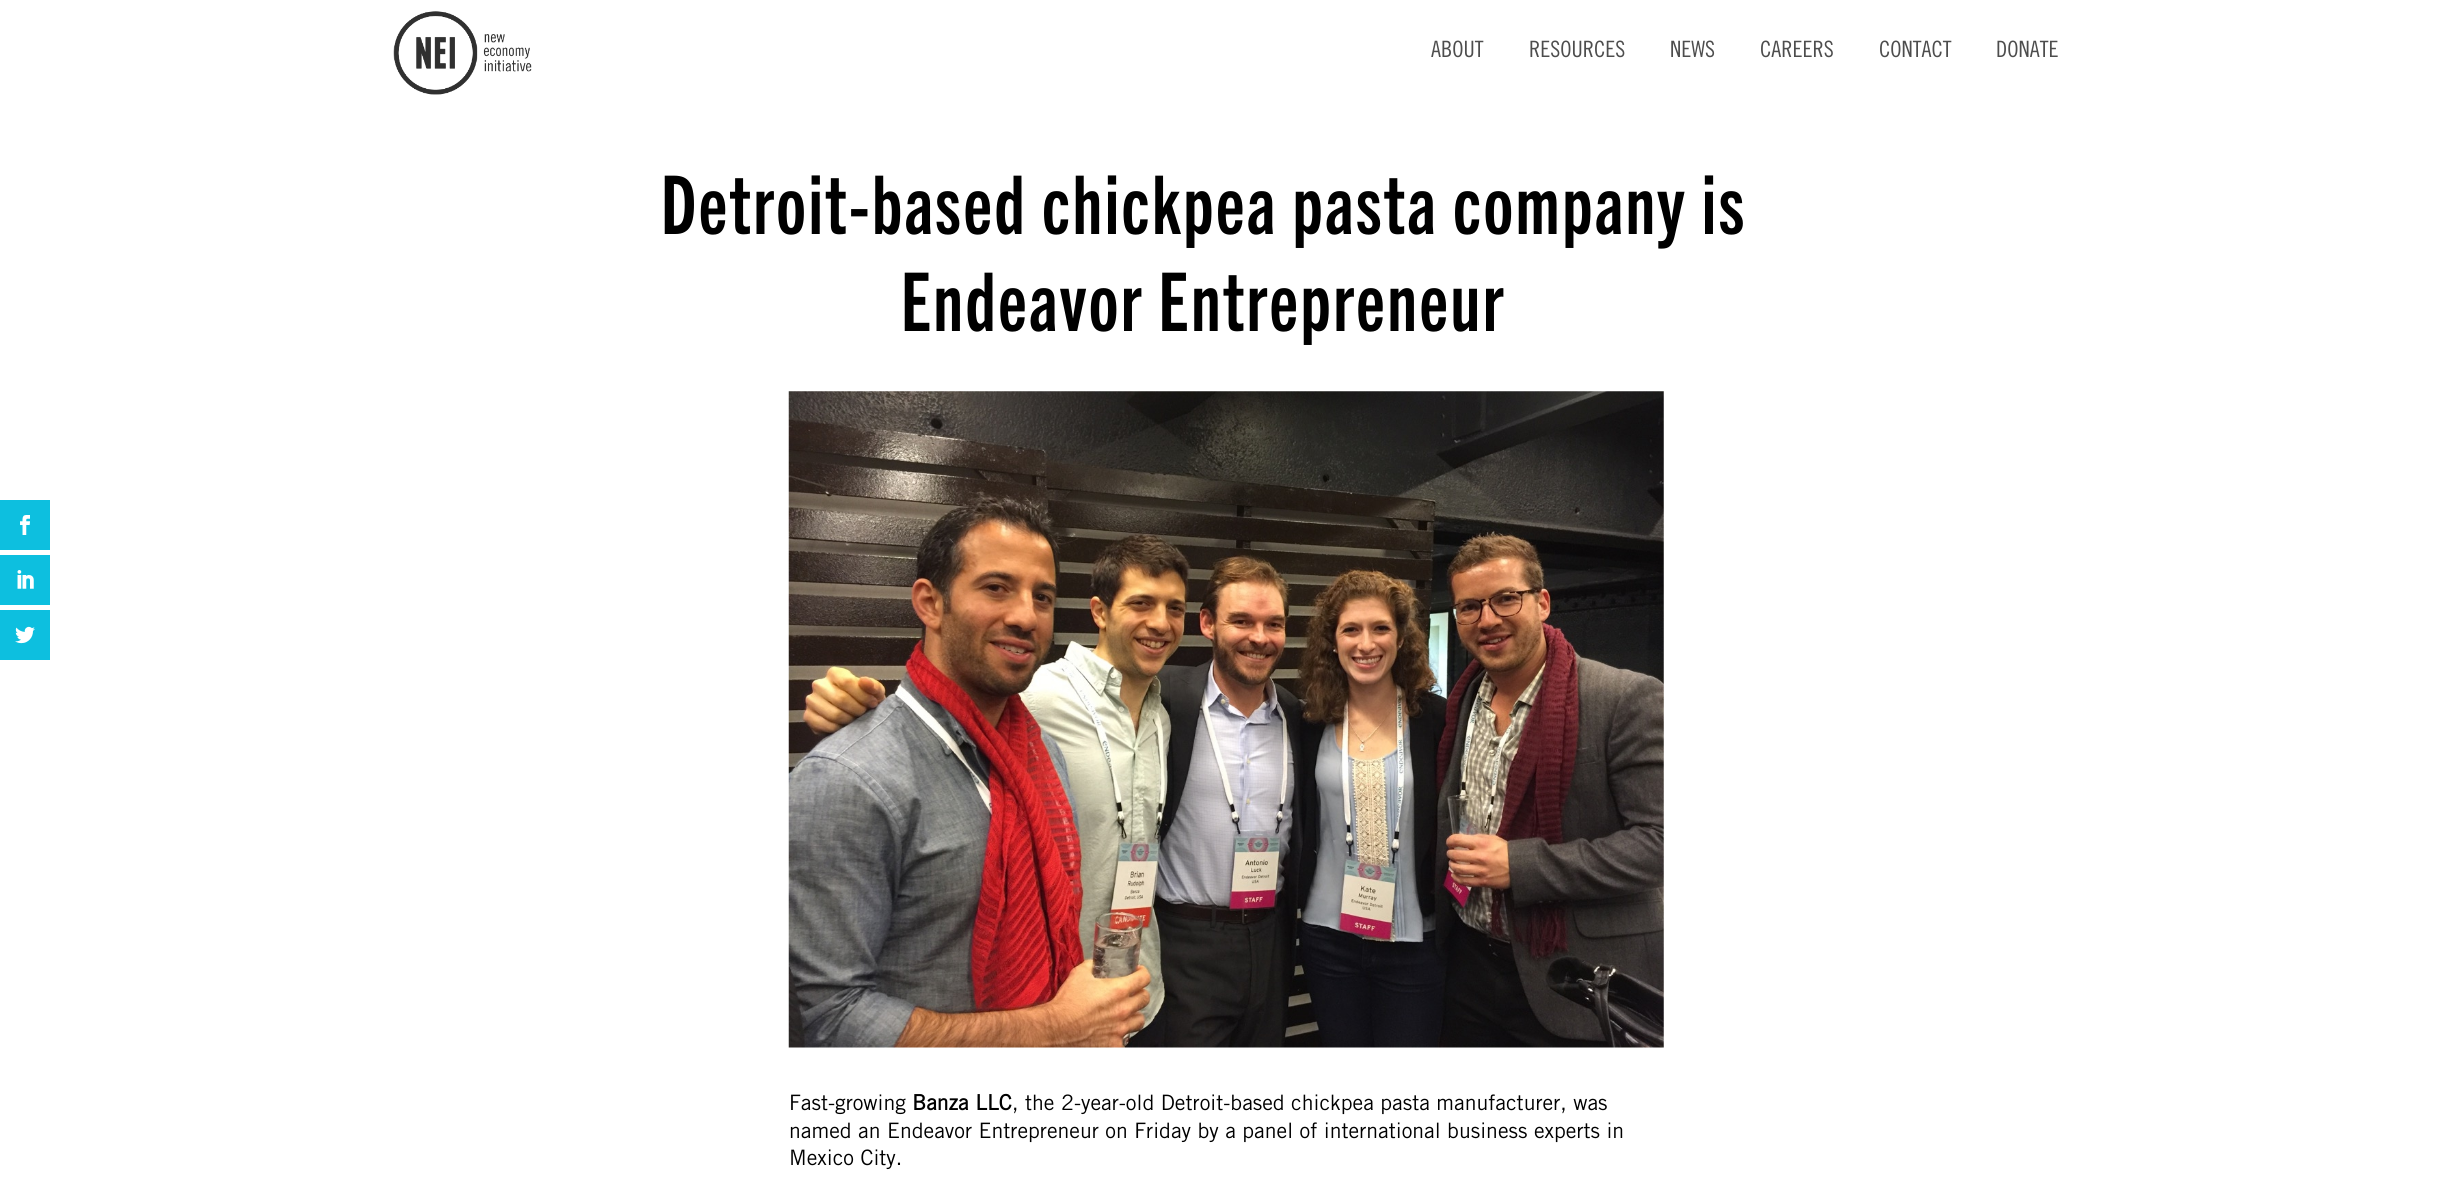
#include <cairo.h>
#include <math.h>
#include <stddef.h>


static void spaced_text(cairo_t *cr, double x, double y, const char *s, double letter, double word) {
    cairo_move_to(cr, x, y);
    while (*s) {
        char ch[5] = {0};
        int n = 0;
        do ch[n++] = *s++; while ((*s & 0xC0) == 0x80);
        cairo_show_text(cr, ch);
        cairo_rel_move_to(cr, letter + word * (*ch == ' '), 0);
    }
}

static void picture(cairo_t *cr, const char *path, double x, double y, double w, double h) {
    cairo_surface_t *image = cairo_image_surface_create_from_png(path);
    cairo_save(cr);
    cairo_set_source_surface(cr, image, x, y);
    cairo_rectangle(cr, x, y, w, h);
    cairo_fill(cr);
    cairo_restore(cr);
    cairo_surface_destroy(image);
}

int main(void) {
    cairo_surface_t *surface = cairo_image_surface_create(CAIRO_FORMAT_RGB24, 2452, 1199);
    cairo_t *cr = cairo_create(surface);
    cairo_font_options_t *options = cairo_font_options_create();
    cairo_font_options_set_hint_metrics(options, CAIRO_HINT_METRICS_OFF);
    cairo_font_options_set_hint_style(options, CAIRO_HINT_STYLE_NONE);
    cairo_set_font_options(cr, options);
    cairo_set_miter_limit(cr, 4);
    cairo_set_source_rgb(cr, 1, 1, 1);
    cairo_paint(cr);
    cairo_set_source_rgb(cr, 0.051, 0.749, 0.875);
    cairo_rectangle(cr, 0, 500, 50, 50);
    cairo_fill(cr);
    picture(cr, "img1.png", 20, 515, 10, 20);
    cairo_rectangle(cr, 0, 555, 50, 50);
    cairo_fill(cr);
    picture(cr, "img2.png", 17, 570, 17, 19);
    cairo_rectangle(cr, 0, 610, 50, 50);
    cairo_fill(cr);
    picture(cr, "img3.png", 15, 626, 20, 18);
    picture(cr, "img4.png", 393, 11, 139, 84);
    cairo_select_font_face(cr, "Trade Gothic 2", CAIRO_FONT_SLANT_NORMAL, CAIRO_FONT_WEIGHT_NORMAL);
    cairo_set_font_size(cr, 22.5);
    cairo_set_source_rgb(cr, 0.302, 0.302, 0.302);
    cairo_move_to(cr, 1431, 57);
    cairo_show_text(cr, "ABOUT");
    cairo_move_to(cr, 1529, 57);
    cairo_show_text(cr, "RESOURCES");
    cairo_move_to(cr, 1670, 57);
    cairo_show_text(cr, "NEWS");
    cairo_move_to(cr, 1760, 57);
    cairo_show_text(cr, "CAREERS");
    cairo_move_to(cr, 1879, 57);
    cairo_show_text(cr, "CONTACT");
    cairo_move_to(cr, 1996, 57);
    cairo_show_text(cr, "DONATE");
    cairo_select_font_face(cr, "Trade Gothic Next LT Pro", CAIRO_FONT_SLANT_NORMAL, CAIRO_FONT_WEIGHT_BOLD);
    cairo_set_font_size(cr, 81.25);
    cairo_set_source_rgb(cr, 0, 0, 0);
    spaced_text(cr, 661, 234, "Detroit-based chickpea pasta company is", 2.5, 0);
    spaced_text(cr, 901, 331, "Endeavor Entrepreneur", 2.5, 0);
    picture(cr, "img5.png", 788, 391, 876, 657);
    cairo_select_font_face(cr, "Trade Gothic", CAIRO_FONT_SLANT_NORMAL, CAIRO_FONT_WEIGHT_NORMAL);
    cairo_set_font_size(cr, 21.25);
    cairo_move_to(cr, 789, 1110);
    cairo_show_text(cr, "Fast-growing");
    cairo_select_font_face(cr, "Trade Gothic", CAIRO_FONT_SLANT_NORMAL, CAIRO_FONT_WEIGHT_BOLD);
    cairo_move_to(cr, 912, 1110);
    cairo_show_text(cr, "Banza LLC");
    cairo_select_font_face(cr, "Trade Gothic", CAIRO_FONT_SLANT_NORMAL, CAIRO_FONT_WEIGHT_NORMAL);
    cairo_move_to(cr, 1012, 1110);
    cairo_show_text(cr, ", the 2-year-old Detroit-based chickpea pasta manufacturer, was");
    cairo_move_to(cr, 789, 1138);
    cairo_show_text(cr, "named an Endeavor Entrepreneur on Friday by a panel of international business experts in");
    cairo_move_to(cr, 789, 1165);
    cairo_show_text(cr, "Mexico City.");
    cairo_surface_write_to_png(surface, "page.png");
    cairo_font_options_destroy(options);
    cairo_destroy(cr);
    cairo_surface_destroy(surface);
    return 0;
}
